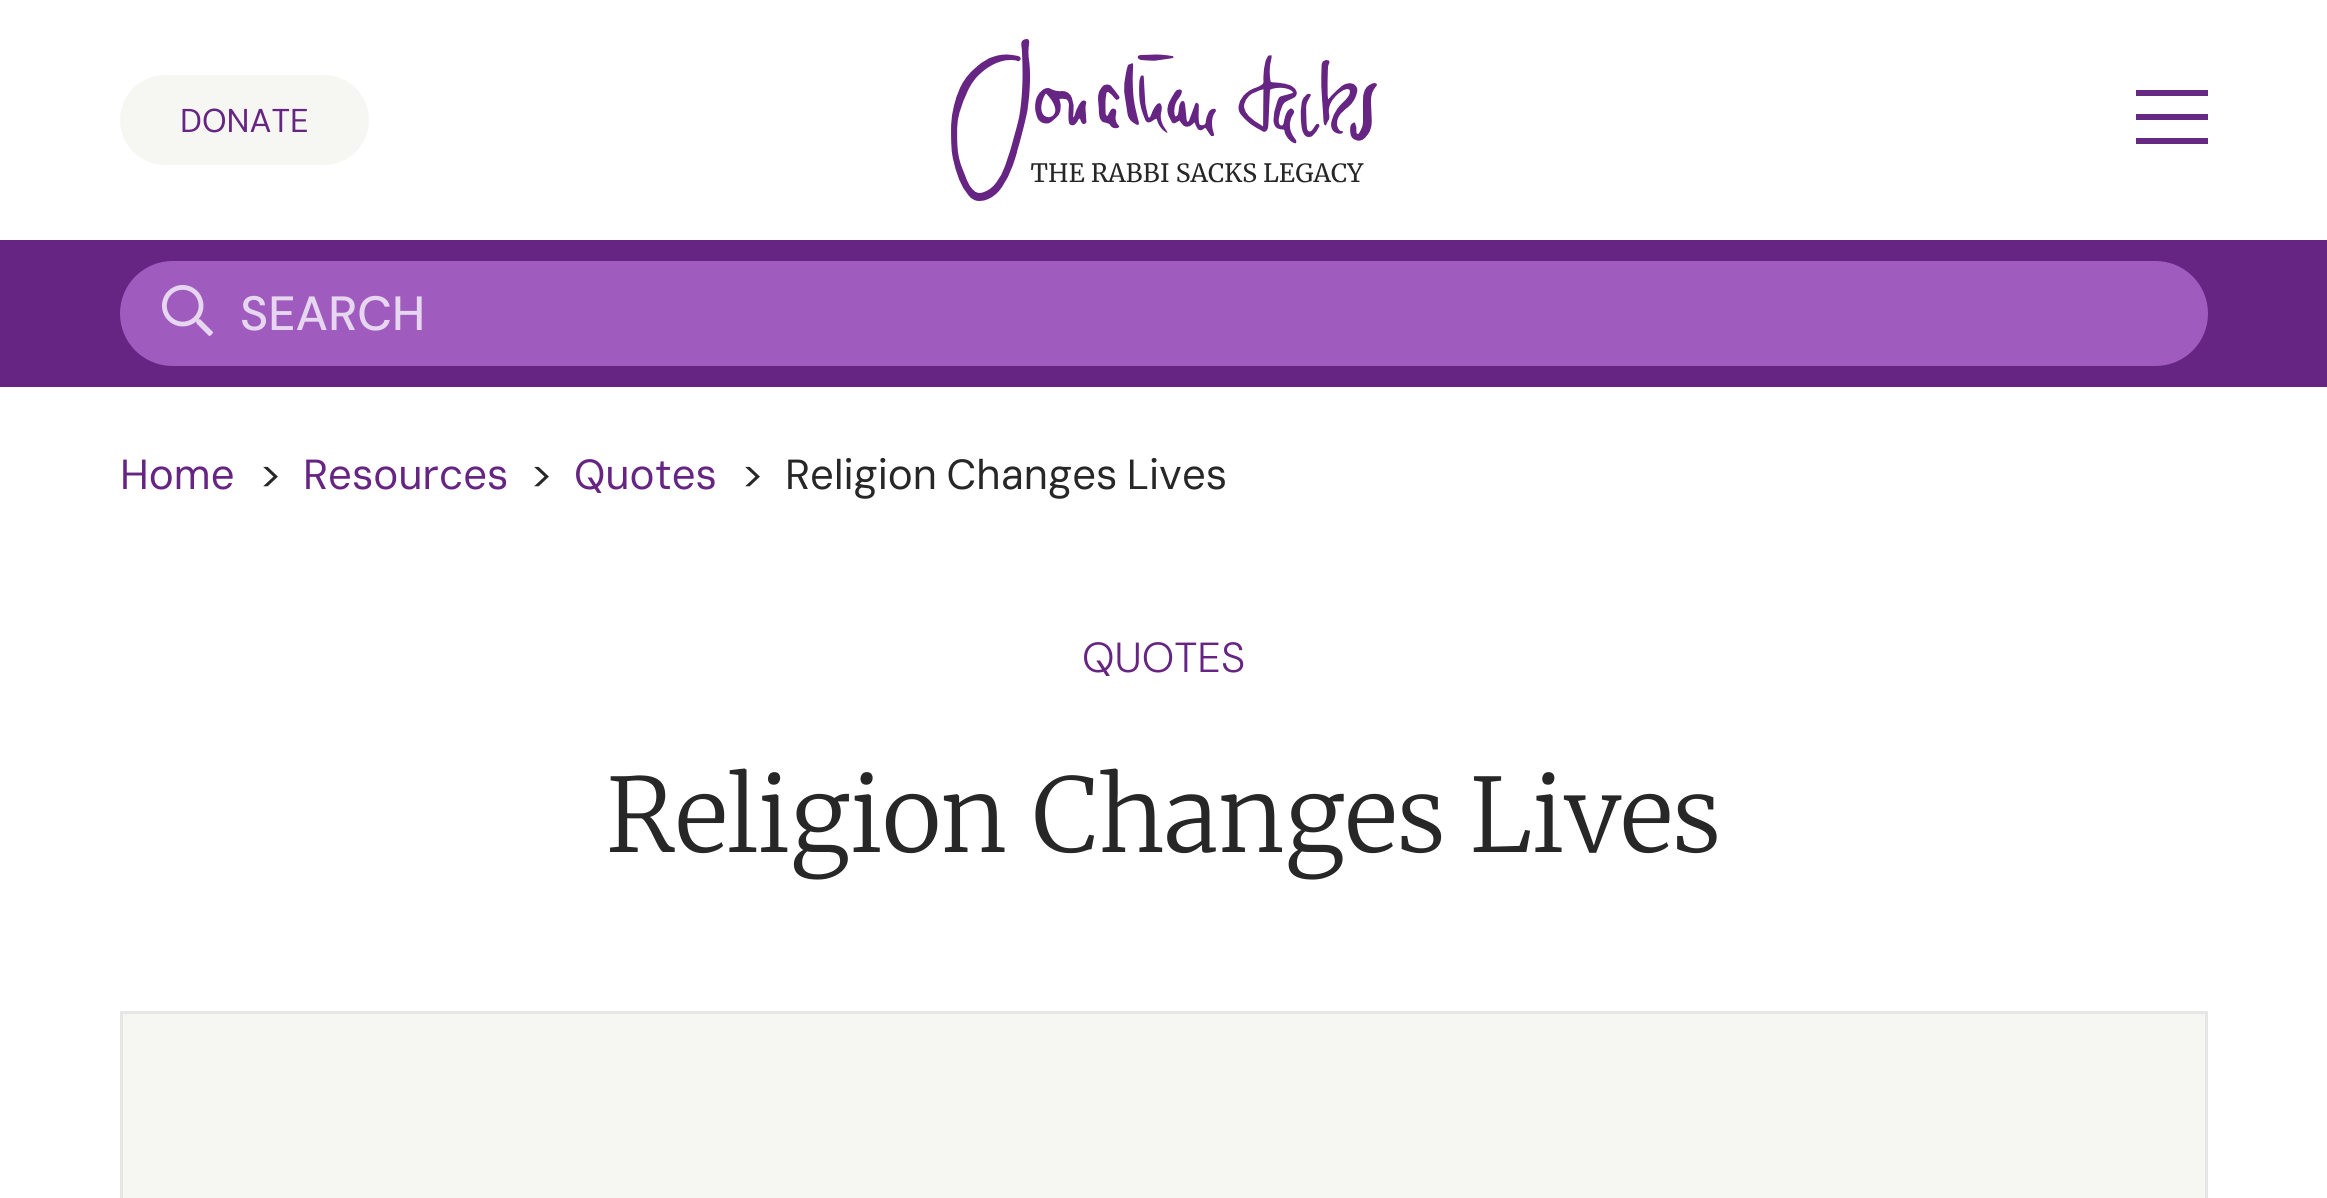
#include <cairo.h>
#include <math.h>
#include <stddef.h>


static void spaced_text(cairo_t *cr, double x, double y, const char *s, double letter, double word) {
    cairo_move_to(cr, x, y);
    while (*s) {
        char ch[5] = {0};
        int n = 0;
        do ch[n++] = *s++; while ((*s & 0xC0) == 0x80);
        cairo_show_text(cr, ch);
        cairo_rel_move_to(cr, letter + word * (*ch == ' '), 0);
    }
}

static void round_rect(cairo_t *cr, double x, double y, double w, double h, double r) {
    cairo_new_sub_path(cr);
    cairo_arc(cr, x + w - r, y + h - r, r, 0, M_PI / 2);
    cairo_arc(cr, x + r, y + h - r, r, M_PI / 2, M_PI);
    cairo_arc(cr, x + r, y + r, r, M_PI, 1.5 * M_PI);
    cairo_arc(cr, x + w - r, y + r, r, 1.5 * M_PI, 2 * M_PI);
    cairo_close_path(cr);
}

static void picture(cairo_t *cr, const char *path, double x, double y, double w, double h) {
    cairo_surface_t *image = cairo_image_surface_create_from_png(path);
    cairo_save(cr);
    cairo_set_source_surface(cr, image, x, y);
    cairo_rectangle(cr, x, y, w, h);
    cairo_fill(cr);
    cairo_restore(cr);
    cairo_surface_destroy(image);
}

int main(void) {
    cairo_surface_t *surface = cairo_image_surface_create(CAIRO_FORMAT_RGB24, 2327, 1198);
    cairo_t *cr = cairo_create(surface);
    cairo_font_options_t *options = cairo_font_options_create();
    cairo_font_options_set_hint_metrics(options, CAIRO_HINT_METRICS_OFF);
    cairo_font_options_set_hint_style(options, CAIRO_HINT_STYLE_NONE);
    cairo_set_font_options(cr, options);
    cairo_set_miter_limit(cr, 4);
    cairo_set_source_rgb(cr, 1, 1, 1);
    cairo_paint(cr);
    cairo_set_source_rgb(cr, 0.961, 0.961, 0.949);
    round_rect(cr, 120, 75, 249, 90, 45);
    cairo_fill(cr);
    cairo_select_font_face(cr, "DM Sans", CAIRO_FONT_SLANT_NORMAL, CAIRO_FONT_WEIGHT_NORMAL);
    cairo_set_font_size(cr, 33);
    cairo_set_source_rgb(cr, 0.4, 0.141, 0.514);
    cairo_move_to(cr, 180, 132);
    cairo_show_text(cr, "DONATE");
    picture(cr, "img1.png", 951, 39, 426, 162);
    cairo_set_source_rgb(cr, 0.396, 0.161, 0.506);
    cairo_rectangle(cr, 2136, 90, 72, 6);
    cairo_fill(cr);
    cairo_rectangle(cr, 2136, 114, 72, 6);
    cairo_fill(cr);
    cairo_rectangle(cr, 2136, 138, 72, 6);
    cairo_fill(cr);
    cairo_set_source_rgb(cr, 0.4, 0.141, 0.514);
    cairo_rectangle(cr, 0, 240, 2327, 147);
    cairo_fill(cr);
    cairo_set_source_rgb(cr, 0.624, 0.361, 0.745);
    round_rect(cr, 120, 261, 2088, 105, 52.5);
    cairo_fill(cr);
    picture(cr, "img2.png", 162, 285, 51, 51);
    cairo_select_font_face(cr, "DM Sans Medium", CAIRO_FONT_SLANT_NORMAL, CAIRO_FONT_WEIGHT_NORMAL);
    cairo_set_font_size(cr, 48);
    cairo_set_source_rgb(cr, 0.906, 0.839, 0.937);
    cairo_move_to(cr, 240, 330);
    cairo_show_text(cr, "SEARCH");
    cairo_select_font_face(cr, "DM Sans", CAIRO_FONT_SLANT_NORMAL, CAIRO_FONT_WEIGHT_NORMAL);
    cairo_set_font_size(cr, 42);
    cairo_set_source_rgb(cr, 0.4, 0.141, 0.514);
    cairo_move_to(cr, 120, 489);
    cairo_show_text(cr, "Home");
    cairo_set_source_rgb(cr, 0.153, 0.153, 0.153);
    cairo_move_to(cr, 259, 489);
    cairo_show_text(cr, ">");
    cairo_set_source_rgb(cr, 0.4, 0.141, 0.514);
    cairo_move_to(cr, 303, 489);
    cairo_show_text(cr, "Resources");
    cairo_set_source_rgb(cr, 0.153, 0.153, 0.153);
    cairo_move_to(cr, 530, 489);
    cairo_show_text(cr, ">");
    cairo_set_source_rgb(cr, 0.4, 0.141, 0.514);
    cairo_move_to(cr, 574, 489);
    cairo_show_text(cr, "Quotes");
    cairo_set_source_rgb(cr, 0.153, 0.153, 0.153);
    cairo_move_to(cr, 741, 489);
    cairo_show_text(cr, ">");
    spaced_text(cr, 785, 489, "Religion Changes Lives", 0, -2);
    cairo_select_font_face(cr, "DM Sans Light", CAIRO_FONT_SLANT_NORMAL, CAIRO_FONT_WEIGHT_NORMAL);
    cairo_set_source_rgb(cr, 0.4, 0.141, 0.514);
    cairo_move_to(cr, 1082, 672);
    cairo_show_text(cr, "QUOTES");
    cairo_select_font_face(cr, "Merriweather Light", CAIRO_FONT_SLANT_NORMAL, CAIRO_FONT_WEIGHT_NORMAL);
    cairo_set_font_size(cr, 102);
    cairo_set_source_rgb(cr, 0.153, 0.153, 0.153);
    cairo_move_to(cr, 606, 852);
    cairo_show_text(cr, "Religion Changes Lives");
    cairo_set_source_rgb(cr, 0.961, 0.961, 0.949);
    cairo_rectangle(cr, 121.5, 1012.5, 2085, 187);
    cairo_fill_preserve(cr);
    cairo_set_source_rgb(cr, 0.902, 0.902, 0.902);
    cairo_set_line_width(cr, 3);
    cairo_stroke(cr);
    cairo_surface_write_to_png(surface, "page.png");
    cairo_font_options_destroy(options);
    cairo_destroy(cr);
    cairo_surface_destroy(surface);
    return 0;
}
